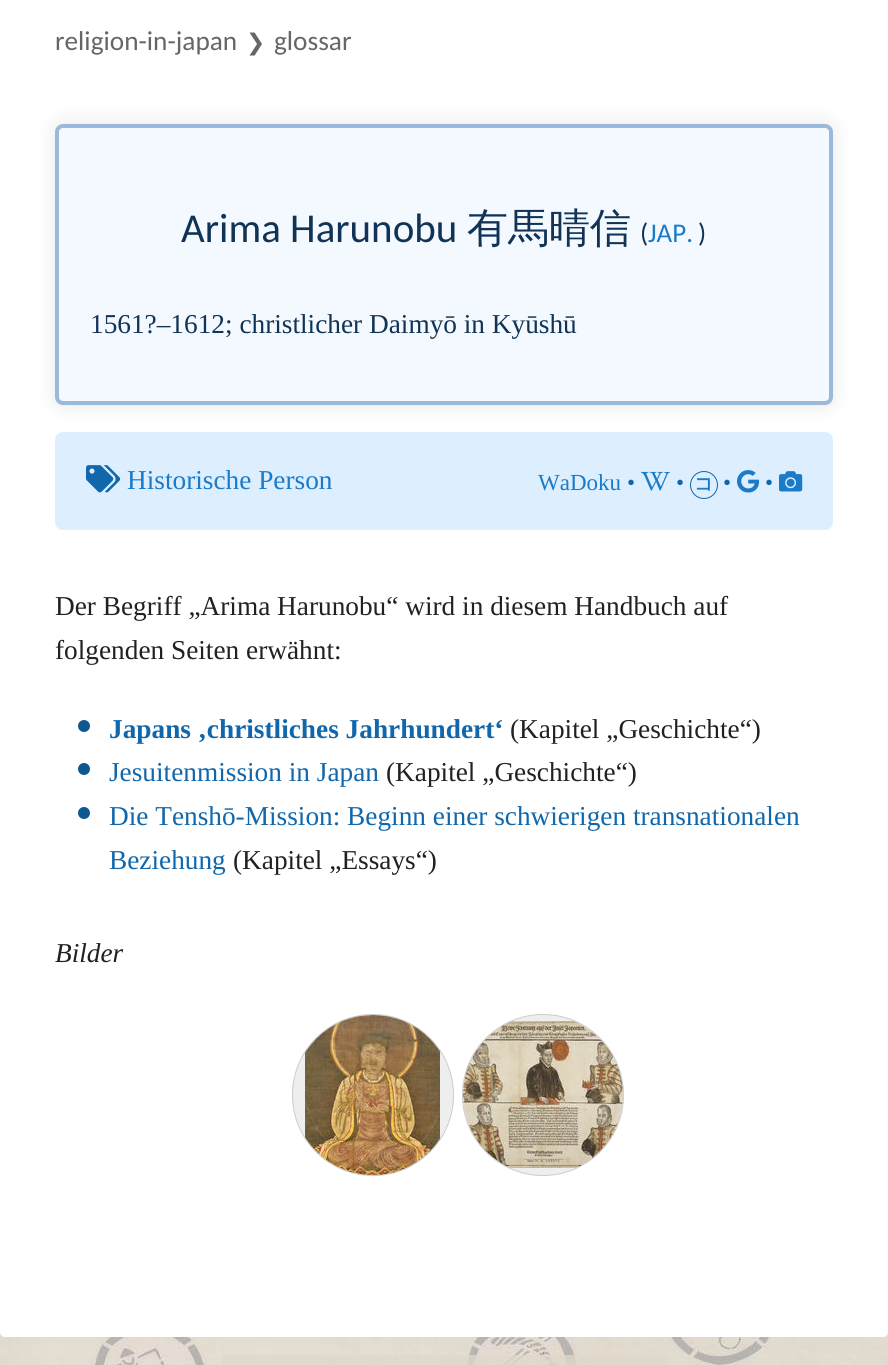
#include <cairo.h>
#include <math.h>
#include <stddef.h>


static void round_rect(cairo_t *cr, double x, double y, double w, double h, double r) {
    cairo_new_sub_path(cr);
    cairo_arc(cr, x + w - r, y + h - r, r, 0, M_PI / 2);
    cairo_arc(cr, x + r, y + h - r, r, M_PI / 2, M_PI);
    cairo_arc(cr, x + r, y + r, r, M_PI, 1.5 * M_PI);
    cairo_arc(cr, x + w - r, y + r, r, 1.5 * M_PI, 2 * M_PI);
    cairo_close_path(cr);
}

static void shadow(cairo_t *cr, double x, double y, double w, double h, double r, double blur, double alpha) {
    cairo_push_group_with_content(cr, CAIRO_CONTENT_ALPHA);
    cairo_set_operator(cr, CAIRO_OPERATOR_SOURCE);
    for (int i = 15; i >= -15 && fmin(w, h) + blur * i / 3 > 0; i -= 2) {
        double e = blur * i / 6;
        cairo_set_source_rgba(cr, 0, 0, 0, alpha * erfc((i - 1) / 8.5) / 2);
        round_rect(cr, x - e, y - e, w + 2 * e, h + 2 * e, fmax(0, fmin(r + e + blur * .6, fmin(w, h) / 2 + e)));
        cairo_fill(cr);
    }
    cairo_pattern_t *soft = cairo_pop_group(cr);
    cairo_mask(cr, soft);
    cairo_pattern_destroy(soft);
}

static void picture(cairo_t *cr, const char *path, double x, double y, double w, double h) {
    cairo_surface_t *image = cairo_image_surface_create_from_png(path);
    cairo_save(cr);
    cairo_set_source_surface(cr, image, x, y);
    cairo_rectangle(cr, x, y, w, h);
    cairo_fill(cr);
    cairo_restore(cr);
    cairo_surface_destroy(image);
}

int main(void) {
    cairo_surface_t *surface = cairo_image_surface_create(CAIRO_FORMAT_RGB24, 888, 1365);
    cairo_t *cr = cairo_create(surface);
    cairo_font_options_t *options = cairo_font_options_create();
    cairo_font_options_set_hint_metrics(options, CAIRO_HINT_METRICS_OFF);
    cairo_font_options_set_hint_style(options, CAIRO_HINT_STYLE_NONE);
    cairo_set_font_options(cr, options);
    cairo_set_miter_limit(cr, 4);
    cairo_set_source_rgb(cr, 1, 1, 1);
    cairo_paint(cr);
    picture(cr, "img1.png", 0, 1332, 888, 33);
    cairo_set_source_rgb(cr, 1, 1, 1);
    cairo_new_path(cr);
    cairo_move_to(cr, 0, 0);
    cairo_line_to(cr, 888, 0);
    cairo_line_to(cr, 888, 1332);
    cairo_curve_to(cr, 888, 1335, 886, 1337, 883, 1337);
    cairo_line_to(cr, 5, 1337);
    cairo_curve_to(cr, 2, 1337, 0, 1335, 0, 1332);
    cairo_close_path(cr);
    cairo_fill(cr);
    cairo_select_font_face(cr, "Carlito", CAIRO_FONT_SLANT_NORMAL, CAIRO_FONT_WEIGHT_NORMAL);
    cairo_set_font_size(cr, 27.3);
    cairo_set_source_rgb(cr, 0.4, 0.4, 0.4);
    cairo_move_to(cr, 55, 50);
    cairo_show_text(cr, "religion-in-japan");
    cairo_select_font_face(cr, "DejaVu Sans", CAIRO_FONT_SLANT_NORMAL, CAIRO_FONT_WEIGHT_NORMAL);
    cairo_set_font_size(cr, 23);
    cairo_move_to(cr, 246, 50);
    cairo_show_text(cr, "❯");
    cairo_select_font_face(cr, "Carlito", CAIRO_FONT_SLANT_NORMAL, CAIRO_FONT_WEIGHT_NORMAL);
    cairo_set_font_size(cr, 27.3);
    cairo_move_to(cr, 274, 50);
    cairo_show_text(cr, "glossar");
    cairo_set_source_rgb(cr, 0, 0, 0);
    shadow(cr, 55, 124, 778, 281, 8, 10, 0.1);
    cairo_set_source_rgb(cr, 0.953, 0.973, 1);
    round_rect(cr, 57, 126, 774, 277, 6);
    cairo_fill_preserve(cr);
    cairo_set_source_rgb(cr, 0.604, 0.725, 0.859);
    cairo_set_line_width(cr, 4);
    cairo_stroke(cr);
    cairo_set_font_size(cr, 41);
    cairo_set_source_rgb(cr, 0.067, 0.2, 0.333);
    cairo_move_to(cr, 181, 242);
    cairo_show_text(cr, "Arima Harunobu");
    cairo_select_font_face(cr, "WenQuanYi Zen Hei Medium", CAIRO_FONT_SLANT_NORMAL, CAIRO_FONT_WEIGHT_NORMAL);
    cairo_move_to(cr, 467, 242);
    cairo_show_text(cr, "有馬晴信");
    cairo_select_font_face(cr, "Carlito", CAIRO_FONT_SLANT_NORMAL, CAIRO_FONT_WEIGHT_NORMAL);
    cairo_set_font_size(cr, 27);
    cairo_move_to(cr, 640, 242);
    cairo_show_text(cr, "(");
    cairo_set_source_rgb(cr, 0.102, 0.482, 0.788);
    cairo_move_to(cr, 648, 242);
    cairo_show_text(cr, "JAP.");
    cairo_set_source_rgb(cr, 0.067, 0.2, 0.333);
    cairo_move_to(cr, 698, 242);
    cairo_show_text(cr, ")");
    cairo_select_font_face(cr, "Liberation Serif", CAIRO_FONT_SLANT_NORMAL, CAIRO_FONT_WEIGHT_NORMAL);
    cairo_set_font_size(cr, 27.3);
    cairo_move_to(cr, 90, 333);
    cairo_show_text(cr, "1561?–1612; christlicher Daimyō in Kyūshū");
    cairo_set_source_rgb(cr, 0.867, 0.933, 1);
    round_rect(cr, 55, 432, 778, 98, 8);
    cairo_fill(cr);
    picture(cr, "img2.png", 86, 465, 35, 28);
    cairo_set_source_rgb(cr, 0.102, 0.482, 0.788);
    cairo_move_to(cr, 127, 489);
    cairo_show_text(cr, "Historische Person");
    cairo_set_font_size(cr, 23);
    cairo_move_to(cr, 538, 490);
    cairo_show_text(cr, "WaDoku");
    cairo_set_source_rgb(cr, 0.063, 0.404, 0.675);
    cairo_move_to(cr, 627, 490);
    cairo_show_text(cr, "•");
    picture(cr, "img3.png", 641, 471, 30, 20);
    cairo_move_to(cr, 676, 490);
    cairo_show_text(cr, "•");
    cairo_new_path(cr);
    cairo_arc(cr, 704, 485, 13.5, 0, 2 * M_PI);
    cairo_set_line_width(cr, 1);
    cairo_stroke(cr);
    cairo_select_font_face(cr, "WenQuanYi Zen Hei", CAIRO_FONT_SLANT_NORMAL, CAIRO_FONT_WEIGHT_BOLD);
    cairo_set_font_size(cr, 19);
    cairo_set_source_rgb(cr, 0.102, 0.482, 0.788);
    cairo_move_to(cr, 694, 490);
    cairo_show_text(cr, "コ");
    cairo_select_font_face(cr, "Liberation Serif", CAIRO_FONT_SLANT_NORMAL, CAIRO_FONT_WEIGHT_NORMAL);
    cairo_set_font_size(cr, 23);
    cairo_set_source_rgb(cr, 0.063, 0.404, 0.675);
    cairo_move_to(cr, 723, 490);
    cairo_show_text(cr, "•");
    picture(cr, "img4.png", 737, 470, 23, 23);
    cairo_move_to(cr, 765, 490);
    cairo_show_text(cr, "•");
    picture(cr, "img5.png", 779, 471, 24, 21);
    cairo_set_font_size(cr, 27.3);
    cairo_set_source_rgb(cr, 0.125, 0.129, 0.133);
    cairo_move_to(cr, 55, 615);
    cairo_show_text(cr, "Der Begriff „Arima Harunobu“ wird in diesem Handbuch auf");
    cairo_move_to(cr, 55, 659);
    cairo_show_text(cr, "folgenden Seiten erwähnt:");
    cairo_set_source_rgb(cr, 0.055, 0.345, 0.573);
    cairo_new_path(cr);
    cairo_arc(cr, 84, 726, 6, 0, 2 * M_PI);
    cairo_fill(cr);
    cairo_select_font_face(cr, "Liberation Serif", CAIRO_FONT_SLANT_NORMAL, CAIRO_FONT_WEIGHT_BOLD);
    cairo_set_source_rgb(cr, 0.063, 0.404, 0.675);
    cairo_move_to(cr, 109, 738);
    cairo_show_text(cr, "Japans ‚christliches Jahrhundert‘");
    cairo_select_font_face(cr, "Liberation Serif", CAIRO_FONT_SLANT_NORMAL, CAIRO_FONT_WEIGHT_NORMAL);
    cairo_set_source_rgb(cr, 0.125, 0.129, 0.133);
    cairo_move_to(cr, 510, 738);
    cairo_show_text(cr, "(Kapitel „Geschichte“)");
    cairo_set_source_rgb(cr, 0.055, 0.345, 0.573);
    cairo_new_path(cr);
    cairo_arc(cr, 84, 769, 6, 0, 2 * M_PI);
    cairo_fill(cr);
    cairo_set_source_rgb(cr, 0.063, 0.404, 0.675);
    cairo_move_to(cr, 109, 781);
    cairo_show_text(cr, "Jesuitenmission in Japan");
    cairo_set_source_rgb(cr, 0.125, 0.129, 0.133);
    cairo_move_to(cr, 386, 781);
    cairo_show_text(cr, "(Kapitel „Geschichte“)");
    cairo_set_source_rgb(cr, 0.055, 0.345, 0.573);
    cairo_new_path(cr);
    cairo_arc(cr, 84, 813, 6, 0, 2 * M_PI);
    cairo_fill(cr);
    cairo_set_source_rgb(cr, 0.063, 0.404, 0.675);
    cairo_move_to(cr, 109, 825);
    cairo_show_text(cr, "Die Tenshō-Mission: Beginn einer schwierigen transnationalen");
    cairo_move_to(cr, 109, 869);
    cairo_show_text(cr, "Beziehung");
    cairo_set_source_rgb(cr, 0.125, 0.129, 0.133);
    cairo_move_to(cr, 233, 869);
    cairo_show_text(cr, "(Kapitel „Essays“)");
    cairo_select_font_face(cr, "Liberation Serif", CAIRO_FONT_SLANT_ITALIC, CAIRO_FONT_WEIGHT_NORMAL);
    cairo_move_to(cr, 55, 962);
    cairo_show_text(cr, "Bilder");
    cairo_set_source_rgb(cr, 0.933, 0.933, 0.933);
    cairo_new_path(cr);
    cairo_arc(cr, 373, 1095, 80.5, 0, 2 * M_PI);
    cairo_fill_preserve(cr);
    cairo_set_source_rgb(cr, 0.8, 0.8, 0.8);
    cairo_stroke(cr);
    picture(cr, "img6.png", 305, 1015, 135, 160);
    cairo_set_source_rgb(cr, 0.933, 0.933, 0.933);
    cairo_arc(cr, 543, 1095, 80.5, 0, 2 * M_PI);
    cairo_fill_preserve(cr);
    cairo_set_source_rgb(cr, 0.8, 0.8, 0.8);
    cairo_stroke(cr);
    picture(cr, "img7.png", 463, 1021, 160, 147);
    cairo_set_source_rgba(cr, 0.875, 0.843, 0.788, 0.76);
    cairo_rectangle(cr, 222, 1355, 444, 10);
    cairo_fill(cr);
    cairo_surface_write_to_png(surface, "page.png");
    cairo_font_options_destroy(options);
    cairo_destroy(cr);
    cairo_surface_destroy(surface);
    return 0;
}
